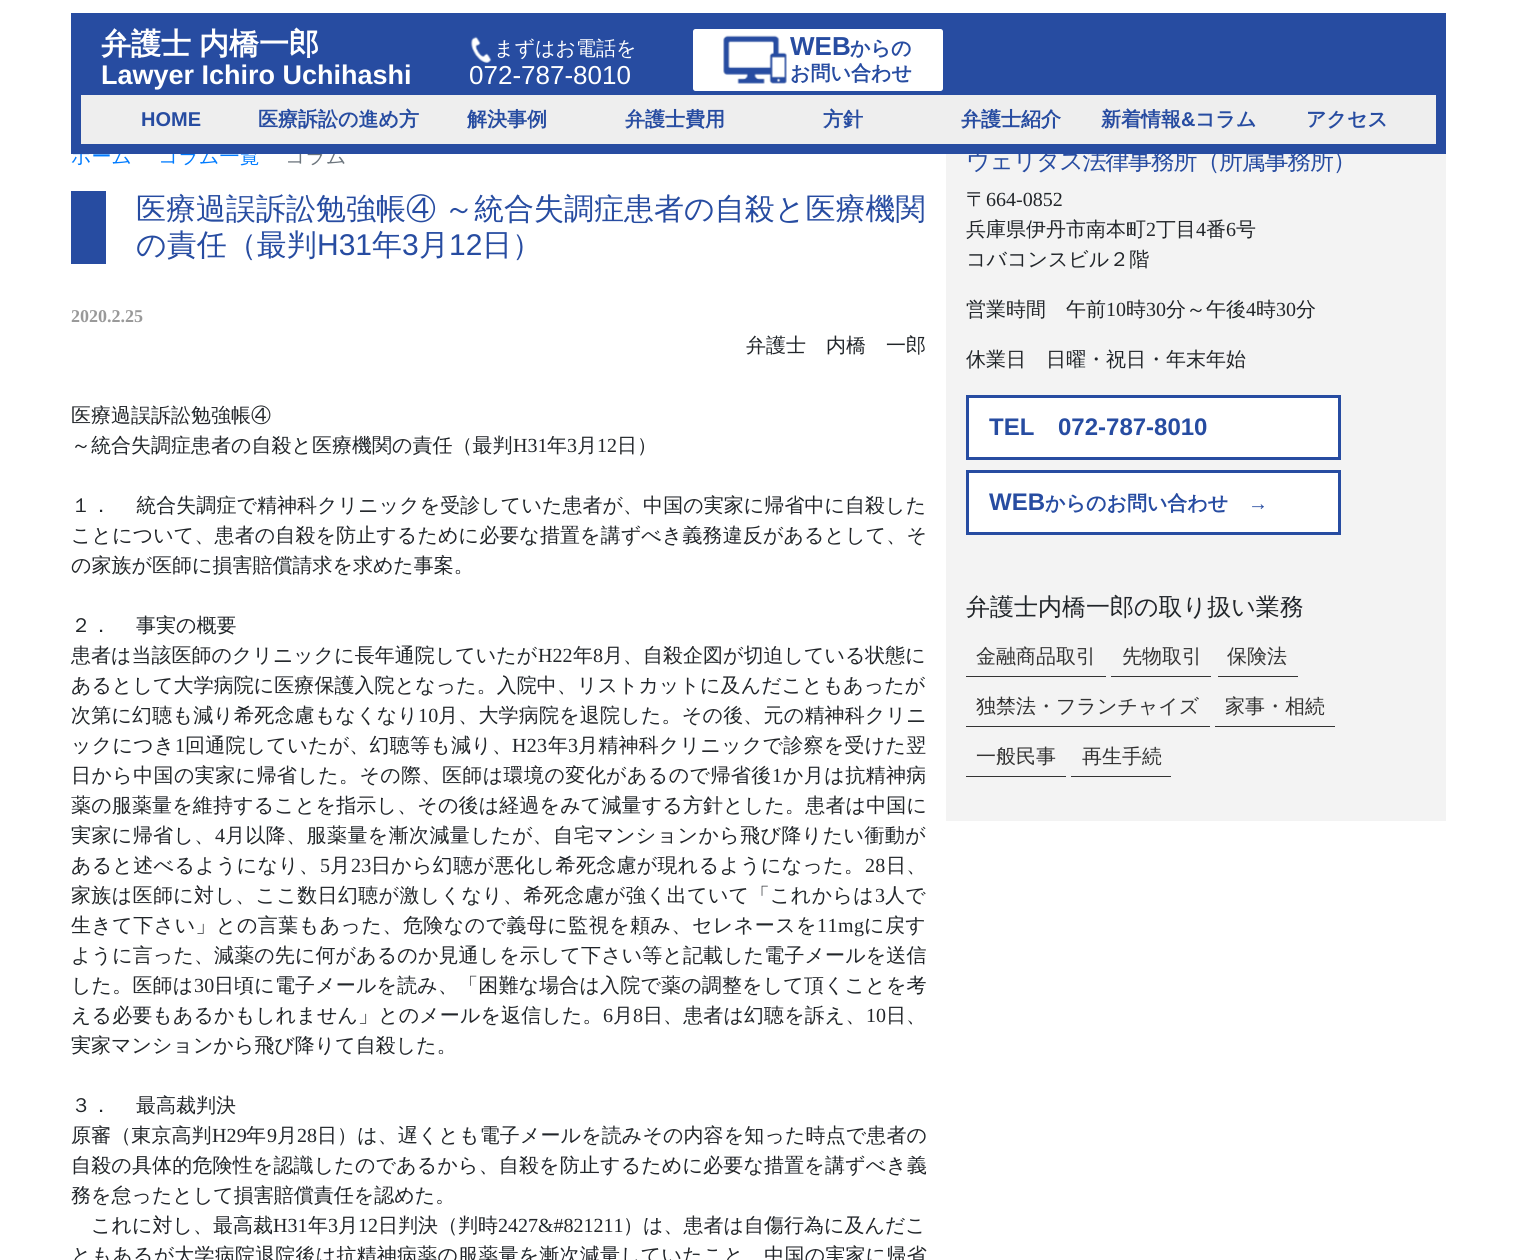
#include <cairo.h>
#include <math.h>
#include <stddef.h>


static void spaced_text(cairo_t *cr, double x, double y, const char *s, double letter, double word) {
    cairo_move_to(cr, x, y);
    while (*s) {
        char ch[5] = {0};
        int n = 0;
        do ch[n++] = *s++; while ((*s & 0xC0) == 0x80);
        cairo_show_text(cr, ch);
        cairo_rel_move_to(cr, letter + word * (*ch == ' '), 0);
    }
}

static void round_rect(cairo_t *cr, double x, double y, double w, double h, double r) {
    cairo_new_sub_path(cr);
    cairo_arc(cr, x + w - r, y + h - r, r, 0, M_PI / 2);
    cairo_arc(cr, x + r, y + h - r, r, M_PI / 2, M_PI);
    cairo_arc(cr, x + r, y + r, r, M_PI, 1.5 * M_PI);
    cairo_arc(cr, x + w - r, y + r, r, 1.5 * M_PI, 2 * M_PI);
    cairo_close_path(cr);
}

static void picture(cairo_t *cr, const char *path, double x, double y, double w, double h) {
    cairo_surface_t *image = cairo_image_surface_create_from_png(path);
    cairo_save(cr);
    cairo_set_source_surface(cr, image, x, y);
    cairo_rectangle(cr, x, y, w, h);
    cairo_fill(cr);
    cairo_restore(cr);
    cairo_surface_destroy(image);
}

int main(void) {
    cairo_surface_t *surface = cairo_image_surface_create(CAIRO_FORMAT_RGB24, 1517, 1260);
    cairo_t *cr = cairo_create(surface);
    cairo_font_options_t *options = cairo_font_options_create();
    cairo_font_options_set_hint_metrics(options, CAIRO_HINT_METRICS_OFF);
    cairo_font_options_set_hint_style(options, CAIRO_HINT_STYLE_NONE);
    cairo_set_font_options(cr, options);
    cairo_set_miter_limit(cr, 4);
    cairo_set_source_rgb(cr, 1, 1, 1);
    cairo_paint(cr);
    cairo_select_font_face(cr, "WenQuanYi Zen Hei Medium", CAIRO_FONT_SLANT_NORMAL, CAIRO_FONT_WEIGHT_NORMAL);
    cairo_set_font_size(cr, 20);
    cairo_set_source_rgb(cr, 0, 0.482, 1);
    cairo_move_to(cr, 71, 163);
    cairo_show_text(cr, "ホーム");
    cairo_move_to(cr, 158, 163);
    cairo_show_text(cr, "コラム一覧");
    cairo_set_source_rgb(cr, 0.424, 0.459, 0.49);
    cairo_move_to(cr, 285, 163);
    cairo_show_text(cr, "コラム");
    cairo_set_source_rgb(cr, 0.153, 0.298, 0.631);
    cairo_rectangle(cr, 71, 13, 1375, 141);
    cairo_fill(cr);
    cairo_select_font_face(cr, "WenQuanYi Zen Hei", CAIRO_FONT_SLANT_NORMAL, CAIRO_FONT_WEIGHT_BOLD);
    cairo_set_font_size(cr, 30);
    cairo_set_source_rgb(cr, 1, 1, 1);
    spaced_text(cr, 101, 54, "弁護士 内橋一郎", 0, -1);
    cairo_select_font_face(cr, "Liberation Sans", CAIRO_FONT_SLANT_NORMAL, CAIRO_FONT_WEIGHT_BOLD);
    cairo_set_font_size(cr, 27);
    cairo_move_to(cr, 101, 84);
    cairo_show_text(cr, "Lawyer Ichiro Uchihashi");
    picture(cr, "img1.png", 470, 36, 22, 27);
    cairo_select_font_face(cr, "WenQuanYi Zen Hei Medium", CAIRO_FONT_SLANT_NORMAL, CAIRO_FONT_WEIGHT_NORMAL);
    cairo_set_font_size(cr, 20);
    cairo_move_to(cr, 494, 55);
    cairo_show_text(cr, "まずはお電話を");
    cairo_select_font_face(cr, "Liberation Sans", CAIRO_FONT_SLANT_NORMAL, CAIRO_FONT_WEIGHT_NORMAL);
    cairo_set_font_size(cr, 26);
    cairo_move_to(cr, 469, 84);
    cairo_show_text(cr, "072-787-8010");
    round_rect(cr, 693, 29, 250, 62, 2.5);
    cairo_fill(cr);
    picture(cr, "img2.png", 723, 35, 64, 49);
    cairo_select_font_face(cr, "Liberation Sans", CAIRO_FONT_SLANT_NORMAL, CAIRO_FONT_WEIGHT_BOLD);
    cairo_set_source_rgb(cr, 0.153, 0.298, 0.631);
    cairo_move_to(cr, 790, 55);
    cairo_show_text(cr, "WEB");
    cairo_select_font_face(cr, "WenQuanYi Zen Hei", CAIRO_FONT_SLANT_NORMAL, CAIRO_FONT_WEIGHT_BOLD);
    cairo_set_font_size(cr, 20);
    cairo_move_to(cr, 850, 55);
    cairo_show_text(cr, "からの");
    cairo_move_to(cr, 790, 80);
    cairo_show_text(cr, "お問い合わせ");
    cairo_set_source_rgb(cr, 0.933, 0.933, 0.933);
    cairo_rectangle(cr, 81, 95, 1355, 49);
    cairo_fill(cr);
    cairo_select_font_face(cr, "Liberation Sans", CAIRO_FONT_SLANT_NORMAL, CAIRO_FONT_WEIGHT_BOLD);
    cairo_set_source_rgb(cr, 0.153, 0.298, 0.631);
    cairo_move_to(cr, 141, 126);
    cairo_show_text(cr, "HOME");
    cairo_select_font_face(cr, "WenQuanYi Zen Hei", CAIRO_FONT_SLANT_NORMAL, CAIRO_FONT_WEIGHT_BOLD);
    cairo_move_to(cr, 258, 126);
    cairo_show_text(cr, "医療訴訟の進め方");
    cairo_move_to(cr, 467, 126);
    cairo_show_text(cr, "解決事例");
    cairo_move_to(cr, 625, 126);
    cairo_show_text(cr, "弁護士費用");
    cairo_move_to(cr, 823, 126);
    cairo_show_text(cr, "方針");
    cairo_move_to(cr, 961, 126);
    cairo_show_text(cr, "弁護士紹介");
    cairo_move_to(cr, 1101, 126);
    cairo_show_text(cr, "新着情報");
    cairo_select_font_face(cr, "Liberation Sans", CAIRO_FONT_SLANT_NORMAL, CAIRO_FONT_WEIGHT_BOLD);
    cairo_move_to(cr, 1181, 126);
    cairo_show_text(cr, "&");
    cairo_select_font_face(cr, "WenQuanYi Zen Hei", CAIRO_FONT_SLANT_NORMAL, CAIRO_FONT_WEIGHT_BOLD);
    cairo_move_to(cr, 1195, 126);
    cairo_show_text(cr, "コラム");
    cairo_move_to(cr, 1306, 126);
    cairo_show_text(cr, "アクセス");
    cairo_rectangle(cr, 71, 191, 35, 73);
    cairo_fill(cr);
    cairo_select_font_face(cr, "WenQuanYi Zen Hei Medium", CAIRO_FONT_SLANT_NORMAL, CAIRO_FONT_WEIGHT_NORMAL);
    cairo_set_font_size(cr, 30);
    spaced_text(cr, 136, 219, "医療過誤訴訟勉強帳④ ～統合失調症患者の自殺と医療機関", 0, -1);
    cairo_move_to(cr, 136, 255);
    cairo_show_text(cr, "の責任（最判");
    cairo_select_font_face(cr, "Liberation Sans", CAIRO_FONT_SLANT_NORMAL, CAIRO_FONT_WEIGHT_NORMAL);
    cairo_move_to(cr, 317, 255);
    cairo_show_text(cr, "H31");
    cairo_select_font_face(cr, "WenQuanYi Zen Hei Medium", CAIRO_FONT_SLANT_NORMAL, CAIRO_FONT_WEIGHT_NORMAL);
    cairo_move_to(cr, 372, 255);
    cairo_show_text(cr, "年");
    cairo_select_font_face(cr, "Liberation Sans", CAIRO_FONT_SLANT_NORMAL, CAIRO_FONT_WEIGHT_NORMAL);
    cairo_move_to(cr, 402, 255);
    cairo_show_text(cr, "3");
    cairo_select_font_face(cr, "WenQuanYi Zen Hei Medium", CAIRO_FONT_SLANT_NORMAL, CAIRO_FONT_WEIGHT_NORMAL);
    cairo_move_to(cr, 419, 255);
    cairo_show_text(cr, "月");
    cairo_select_font_face(cr, "Liberation Sans", CAIRO_FONT_SLANT_NORMAL, CAIRO_FONT_WEIGHT_NORMAL);
    cairo_move_to(cr, 449, 255);
    cairo_show_text(cr, "12");
    cairo_select_font_face(cr, "WenQuanYi Zen Hei Medium", CAIRO_FONT_SLANT_NORMAL, CAIRO_FONT_WEIGHT_NORMAL);
    cairo_move_to(cr, 482, 255);
    cairo_show_text(cr, "日）");
    cairo_select_font_face(cr, "Liberation Serif", CAIRO_FONT_SLANT_NORMAL, CAIRO_FONT_WEIGHT_BOLD);
    cairo_set_font_size(cr, 18);
    cairo_set_source_rgb(cr, 0.6, 0.6, 0.6);
    cairo_move_to(cr, 71, 322);
    cairo_show_text(cr, "2020.2.25");
    cairo_select_font_face(cr, "WenQuanYi Zen Hei Medium", CAIRO_FONT_SLANT_NORMAL, CAIRO_FONT_WEIGHT_NORMAL);
    cairo_set_font_size(cr, 20);
    cairo_set_source_rgb(cr, 0.129, 0.145, 0.161);
    cairo_move_to(cr, 746, 352);
    cairo_show_text(cr, "弁護士　内橋　一郎");
    cairo_move_to(cr, 71, 422);
    cairo_show_text(cr, "医療過誤訴訟勉強帳④");
    cairo_move_to(cr, 71, 452);
    cairo_show_text(cr, "～統合失調症患者の自殺と医療機関の責任（最判");
    cairo_select_font_face(cr, "Liberation Serif", CAIRO_FONT_SLANT_NORMAL, CAIRO_FONT_WEIGHT_NORMAL);
    cairo_move_to(cr, 513, 452);
    cairo_show_text(cr, "H31");
    cairo_select_font_face(cr, "WenQuanYi Zen Hei Medium", CAIRO_FONT_SLANT_NORMAL, CAIRO_FONT_WEIGHT_NORMAL);
    cairo_move_to(cr, 547, 452);
    cairo_show_text(cr, "年");
    cairo_select_font_face(cr, "Liberation Serif", CAIRO_FONT_SLANT_NORMAL, CAIRO_FONT_WEIGHT_NORMAL);
    cairo_move_to(cr, 567, 452);
    cairo_show_text(cr, "3");
    cairo_select_font_face(cr, "WenQuanYi Zen Hei Medium", CAIRO_FONT_SLANT_NORMAL, CAIRO_FONT_WEIGHT_NORMAL);
    cairo_move_to(cr, 577, 452);
    cairo_show_text(cr, "月");
    cairo_select_font_face(cr, "Liberation Serif", CAIRO_FONT_SLANT_NORMAL, CAIRO_FONT_WEIGHT_NORMAL);
    cairo_move_to(cr, 597, 452);
    cairo_show_text(cr, "12");
    cairo_select_font_face(cr, "WenQuanYi Zen Hei Medium", CAIRO_FONT_SLANT_NORMAL, CAIRO_FONT_WEIGHT_NORMAL);
    cairo_move_to(cr, 617, 452);
    cairo_show_text(cr, "日）");
    spaced_text(cr, 71, 512, "１． 　統合失調症で精神科クリニックを受診していた患者が、中国の実家に帰省中に自殺した", 0.05, -1);
    spaced_text(cr, 71, 542, "ことについて、患者の自殺を防止するために必要な措置を講ずべき義務違反があるとして、そ", 0.1, 0);
    cairo_move_to(cr, 71, 572);
    cairo_show_text(cr, "の家族が医師に損害賠償請求を求めた事案。");
    spaced_text(cr, 71, 632, "２． 　事実の概要", 0, -1);
    cairo_move_to(cr, 71, 662);
    cairo_show_text(cr, "患者は当該医師のクリニックに長年通院していたが");
    cairo_select_font_face(cr, "Liberation Serif", CAIRO_FONT_SLANT_NORMAL, CAIRO_FONT_WEIGHT_NORMAL);
    cairo_move_to(cr, 538, 662);
    cairo_show_text(cr, "H22");
    cairo_select_font_face(cr, "WenQuanYi Zen Hei Medium", CAIRO_FONT_SLANT_NORMAL, CAIRO_FONT_WEIGHT_NORMAL);
    cairo_move_to(cr, 573, 662);
    cairo_show_text(cr, "年");
    cairo_select_font_face(cr, "Liberation Serif", CAIRO_FONT_SLANT_NORMAL, CAIRO_FONT_WEIGHT_NORMAL);
    cairo_move_to(cr, 593, 662);
    cairo_show_text(cr, "8");
    cairo_select_font_face(cr, "WenQuanYi Zen Hei Medium", CAIRO_FONT_SLANT_NORMAL, CAIRO_FONT_WEIGHT_NORMAL);
    cairo_move_to(cr, 603, 662);
    cairo_show_text(cr, "月、自殺企図が切迫している状態に");
    spaced_text(cr, 71, 692, "あるとして大学病院に医療保護入院となった。入院中、リストカットに及んだこともあったが", 0.05, 0);
    spaced_text(cr, 71, 722, "次第に幻聴も減り希死念慮もなくなり", 0.2, 0);
    cairo_select_font_face(cr, "Liberation Serif", CAIRO_FONT_SLANT_NORMAL, CAIRO_FONT_WEIGHT_NORMAL);
    spaced_text(cr, 418, 722, "10", 0.2, 0);
    cairo_select_font_face(cr, "WenQuanYi Zen Hei Medium", CAIRO_FONT_SLANT_NORMAL, CAIRO_FONT_WEIGHT_NORMAL);
    spaced_text(cr, 438, 722, "月、大学病院を退院した。その後、元の精神科クリニ", 0.2, 0);
    spaced_text(cr, 71, 752, "ックにつき", 0.25, 0);
    cairo_select_font_face(cr, "Liberation Serif", CAIRO_FONT_SLANT_NORMAL, CAIRO_FONT_WEIGHT_NORMAL);
    spaced_text(cr, 175, 752, "1", 0.25, 0);
    cairo_select_font_face(cr, "WenQuanYi Zen Hei Medium", CAIRO_FONT_SLANT_NORMAL, CAIRO_FONT_WEIGHT_NORMAL);
    spaced_text(cr, 185, 752, "回通院していたが、幻聴等も減り、", 0.25, 0);
    cairo_select_font_face(cr, "Liberation Serif", CAIRO_FONT_SLANT_NORMAL, CAIRO_FONT_WEIGHT_NORMAL);
    spaced_text(cr, 512, 752, "H23", 0.25, 0);
    cairo_select_font_face(cr, "WenQuanYi Zen Hei Medium", CAIRO_FONT_SLANT_NORMAL, CAIRO_FONT_WEIGHT_NORMAL);
    spaced_text(cr, 548, 752, "年", 0.25, 0);
    cairo_select_font_face(cr, "Liberation Serif", CAIRO_FONT_SLANT_NORMAL, CAIRO_FONT_WEIGHT_NORMAL);
    spaced_text(cr, 568, 752, "3", 0.25, 0);
    cairo_select_font_face(cr, "WenQuanYi Zen Hei Medium", CAIRO_FONT_SLANT_NORMAL, CAIRO_FONT_WEIGHT_NORMAL);
    spaced_text(cr, 578, 752, "月精神科クリニックで診察を受けた翌", 0.25, 0);
    spaced_text(cr, 71, 782, "日から中国の実家に帰省した。その際、医師は環境の変化があるので帰省後", 0.4, 0);
    cairo_select_font_face(cr, "Liberation Serif", CAIRO_FONT_SLANT_NORMAL, CAIRO_FONT_WEIGHT_NORMAL);
    spaced_text(cr, 772, 782, "1", 0.4, 0);
    cairo_select_font_face(cr, "WenQuanYi Zen Hei Medium", CAIRO_FONT_SLANT_NORMAL, CAIRO_FONT_WEIGHT_NORMAL);
    spaced_text(cr, 783, 782, "か月は抗精神病", 0.4, 0);
    spaced_text(cr, 71, 812, "薬の服薬量を維持することを指示し、その後は経過をみて減量する方針とした。患者は中国に", 0.15, 0);
    spaced_text(cr, 71, 842, "実家に帰省し、", 0.4, 0);
    cairo_select_font_face(cr, "Liberation Serif", CAIRO_FONT_SLANT_NORMAL, CAIRO_FONT_WEIGHT_NORMAL);
    spaced_text(cr, 215, 842, "4", 0.4, 0);
    cairo_select_font_face(cr, "WenQuanYi Zen Hei Medium", CAIRO_FONT_SLANT_NORMAL, CAIRO_FONT_WEIGHT_NORMAL);
    spaced_text(cr, 225, 842, "月以降、服薬量を漸次減量したが、自宅マンションから飛び降りたい衝動が", 0.4, 0);
    spaced_text(cr, 71, 872, "あると述べるようになり、", 0.3, 0);
    cairo_select_font_face(cr, "Liberation Serif", CAIRO_FONT_SLANT_NORMAL, CAIRO_FONT_WEIGHT_NORMAL);
    spaced_text(cr, 320, 872, "5", 0.3, 0);
    cairo_select_font_face(cr, "WenQuanYi Zen Hei Medium", CAIRO_FONT_SLANT_NORMAL, CAIRO_FONT_WEIGHT_NORMAL);
    spaced_text(cr, 330, 872, "月", 0.3, 0);
    cairo_select_font_face(cr, "Liberation Serif", CAIRO_FONT_SLANT_NORMAL, CAIRO_FONT_WEIGHT_NORMAL);
    spaced_text(cr, 351, 872, "23", 0.3, 0);
    cairo_select_font_face(cr, "WenQuanYi Zen Hei Medium", CAIRO_FONT_SLANT_NORMAL, CAIRO_FONT_WEIGHT_NORMAL);
    spaced_text(cr, 371, 872, "日から幻聴が悪化し希死念慮が現れるようになった。", 0.3, 0);
    cairo_select_font_face(cr, "Liberation Serif", CAIRO_FONT_SLANT_NORMAL, CAIRO_FONT_WEIGHT_NORMAL);
    spaced_text(cr, 865, 872, "28", 0.3, 0);
    cairo_select_font_face(cr, "WenQuanYi Zen Hei Medium", CAIRO_FONT_SLANT_NORMAL, CAIRO_FONT_WEIGHT_NORMAL);
    spaced_text(cr, 886, 872, "日、", 0.3, 0);
    spaced_text(cr, 71, 902, "家族は医師に対し、ここ数日幻聴が激しくなり、希死念慮が強く出ていて「これからは", 0.35, 0);
    cairo_select_font_face(cr, "Liberation Serif", CAIRO_FONT_SLANT_NORMAL, CAIRO_FONT_WEIGHT_NORMAL);
    spaced_text(cr, 875, 902, "3", 0.35, 0);
    cairo_select_font_face(cr, "WenQuanYi Zen Hei Medium", CAIRO_FONT_SLANT_NORMAL, CAIRO_FONT_WEIGHT_NORMAL);
    spaced_text(cr, 885, 902, "人で", 0.35, 0);
    spaced_text(cr, 71, 932, "生きて下さい」との言葉もあった、危険なので義母に監視を頼み、セレネースを", 0.45, 0);
    cairo_select_font_face(cr, "Liberation Serif", CAIRO_FONT_SLANT_NORMAL, CAIRO_FONT_WEIGHT_NORMAL);
    spaced_text(cr, 817, 932, "11mg", 0.45, 0);
    cairo_select_font_face(cr, "WenQuanYi Zen Hei Medium", CAIRO_FONT_SLANT_NORMAL, CAIRO_FONT_WEIGHT_NORMAL);
    spaced_text(cr, 864, 932, "に戻す", 0.45, 0);
    spaced_text(cr, 71, 962, "ように言った、減薬の先に何があるのか見通しを示して下さい等と記載した電子メールを送信", 0.1, 0);
    spaced_text(cr, 71, 992, "した。医師は", 0.15, 0);
    cairo_select_font_face(cr, "Liberation Serif", CAIRO_FONT_SLANT_NORMAL, CAIRO_FONT_WEIGHT_NORMAL);
    spaced_text(cr, 194, 992, "30", 0.15, 0);
    cairo_select_font_face(cr, "WenQuanYi Zen Hei Medium", CAIRO_FONT_SLANT_NORMAL, CAIRO_FONT_WEIGHT_NORMAL);
    spaced_text(cr, 214, 992, "日頃に電子メールを読み、「困難な場合は入院で薬の調整をして頂くことを考", 0.15, 0);
    spaced_text(cr, 71, 1022, "える必要もあるかもしれません」とのメールを返信した。", 0.1, 0);
    cairo_select_font_face(cr, "Liberation Serif", CAIRO_FONT_SLANT_NORMAL, CAIRO_FONT_WEIGHT_NORMAL);
    spaced_text(cr, 603, 1022, "6", 0.1, 0);
    cairo_select_font_face(cr, "WenQuanYi Zen Hei Medium", CAIRO_FONT_SLANT_NORMAL, CAIRO_FONT_WEIGHT_NORMAL);
    spaced_text(cr, 613, 1022, "月", 0.1, 0);
    cairo_select_font_face(cr, "Liberation Serif", CAIRO_FONT_SLANT_NORMAL, CAIRO_FONT_WEIGHT_NORMAL);
    spaced_text(cr, 633, 1022, "8", 0.1, 0);
    cairo_select_font_face(cr, "WenQuanYi Zen Hei Medium", CAIRO_FONT_SLANT_NORMAL, CAIRO_FONT_WEIGHT_NORMAL);
    spaced_text(cr, 643, 1022, "日、患者は幻聴を訴え、", 0.1, 0);
    cairo_select_font_face(cr, "Liberation Serif", CAIRO_FONT_SLANT_NORMAL, CAIRO_FONT_WEIGHT_NORMAL);
    spaced_text(cr, 866, 1022, "10", 0.1, 0);
    cairo_select_font_face(cr, "WenQuanYi Zen Hei Medium", CAIRO_FONT_SLANT_NORMAL, CAIRO_FONT_WEIGHT_NORMAL);
    spaced_text(cr, 886, 1022, "日、", 0.1, 0);
    cairo_move_to(cr, 71, 1052);
    cairo_show_text(cr, "実家マンションから飛び降りて自殺した。");
    spaced_text(cr, 71, 1112, "３． 　最高裁判決", 0, -1);
    spaced_text(cr, 71, 1142, "原審（東京高判", 0.1, 0);
    cairo_select_font_face(cr, "Liberation Serif", CAIRO_FONT_SLANT_NORMAL, CAIRO_FONT_WEIGHT_NORMAL);
    spaced_text(cr, 212, 1142, "H29", 0.1, 0);
    cairo_select_font_face(cr, "WenQuanYi Zen Hei Medium", CAIRO_FONT_SLANT_NORMAL, CAIRO_FONT_WEIGHT_NORMAL);
    spaced_text(cr, 246, 1142, "年", 0.1, 0);
    cairo_select_font_face(cr, "Liberation Serif", CAIRO_FONT_SLANT_NORMAL, CAIRO_FONT_WEIGHT_NORMAL);
    spaced_text(cr, 267, 1142, "9", 0.1, 0);
    cairo_select_font_face(cr, "WenQuanYi Zen Hei Medium", CAIRO_FONT_SLANT_NORMAL, CAIRO_FONT_WEIGHT_NORMAL);
    spaced_text(cr, 277, 1142, "月", 0.1, 0);
    cairo_select_font_face(cr, "Liberation Serif", CAIRO_FONT_SLANT_NORMAL, CAIRO_FONT_WEIGHT_NORMAL);
    spaced_text(cr, 297, 1142, "28", 0.1, 0);
    cairo_select_font_face(cr, "WenQuanYi Zen Hei Medium", CAIRO_FONT_SLANT_NORMAL, CAIRO_FONT_WEIGHT_NORMAL);
    spaced_text(cr, 317, 1142, "日）は、遅くとも電子メールを読みその内容を知った時点で患者の", 0.1, 0);
    spaced_text(cr, 71, 1172, "自殺の具体的危険性を認識したのであるから、自殺を防止するために必要な措置を講ずべき義", 0.15, 0);
    cairo_move_to(cr, 71, 1202);
    cairo_show_text(cr, "務を怠ったとして損害賠償責任を認めた。");
    cairo_move_to(cr, 91, 1232);
    cairo_show_text(cr, "これに対し、最高裁");
    cairo_select_font_face(cr, "Liberation Serif", CAIRO_FONT_SLANT_NORMAL, CAIRO_FONT_WEIGHT_NORMAL);
    cairo_move_to(cr, 273, 1232);
    cairo_show_text(cr, "H31");
    cairo_select_font_face(cr, "WenQuanYi Zen Hei Medium", CAIRO_FONT_SLANT_NORMAL, CAIRO_FONT_WEIGHT_NORMAL);
    cairo_move_to(cr, 308, 1232);
    cairo_show_text(cr, "年");
    cairo_select_font_face(cr, "Liberation Serif", CAIRO_FONT_SLANT_NORMAL, CAIRO_FONT_WEIGHT_NORMAL);
    cairo_move_to(cr, 328, 1232);
    cairo_show_text(cr, "3");
    cairo_select_font_face(cr, "WenQuanYi Zen Hei Medium", CAIRO_FONT_SLANT_NORMAL, CAIRO_FONT_WEIGHT_NORMAL);
    cairo_move_to(cr, 338, 1232);
    cairo_show_text(cr, "月");
    cairo_select_font_face(cr, "Liberation Serif", CAIRO_FONT_SLANT_NORMAL, CAIRO_FONT_WEIGHT_NORMAL);
    cairo_move_to(cr, 358, 1232);
    cairo_show_text(cr, "12");
    cairo_select_font_face(cr, "WenQuanYi Zen Hei Medium", CAIRO_FONT_SLANT_NORMAL, CAIRO_FONT_WEIGHT_NORMAL);
    cairo_move_to(cr, 378, 1232);
    cairo_show_text(cr, "日判決（判時");
    cairo_select_font_face(cr, "Liberation Serif", CAIRO_FONT_SLANT_NORMAL, CAIRO_FONT_WEIGHT_NORMAL);
    cairo_move_to(cr, 498, 1232);
    cairo_show_text(cr, "2427&#821211");
    cairo_select_font_face(cr, "WenQuanYi Zen Hei Medium", CAIRO_FONT_SLANT_NORMAL, CAIRO_FONT_WEIGHT_NORMAL);
    cairo_move_to(cr, 623, 1232);
    cairo_show_text(cr, "）は、患者は自傷行為に及んだこ");
    spaced_text(cr, 71, 1262, "ともあるが大学病院退院後は抗精神病薬の服薬量を漸次減量していたこと、中国の実家に帰省", 0.2, 0);
    cairo_set_source_rgb(cr, 0.953, 0.953, 0.953);
    cairo_rectangle(cr, 946, 154, 500, 667);
    cairo_fill(cr);
    cairo_set_font_size(cr, 24);
    cairo_set_source_rgb(cr, 0.153, 0.298, 0.631);
    spaced_text(cr, 966, 169, "ウェリタス法律事務所（所属事務所）", -1.25, 0);
    cairo_set_font_size(cr, 20);
    cairo_set_source_rgb(cr, 0.129, 0.145, 0.161);
    cairo_move_to(cr, 966, 206);
    cairo_show_text(cr, "〒");
    cairo_select_font_face(cr, "Liberation Serif", CAIRO_FONT_SLANT_NORMAL, CAIRO_FONT_WEIGHT_NORMAL);
    cairo_move_to(cr, 986, 206);
    cairo_show_text(cr, "664-0852");
    cairo_select_font_face(cr, "WenQuanYi Zen Hei Medium", CAIRO_FONT_SLANT_NORMAL, CAIRO_FONT_WEIGHT_NORMAL);
    cairo_move_to(cr, 966, 236);
    cairo_show_text(cr, "兵庫県伊丹市南本町");
    cairo_select_font_face(cr, "Liberation Serif", CAIRO_FONT_SLANT_NORMAL, CAIRO_FONT_WEIGHT_NORMAL);
    cairo_move_to(cr, 1146, 236);
    cairo_show_text(cr, "2");
    cairo_select_font_face(cr, "WenQuanYi Zen Hei Medium", CAIRO_FONT_SLANT_NORMAL, CAIRO_FONT_WEIGHT_NORMAL);
    cairo_move_to(cr, 1156, 236);
    cairo_show_text(cr, "丁目");
    cairo_select_font_face(cr, "Liberation Serif", CAIRO_FONT_SLANT_NORMAL, CAIRO_FONT_WEIGHT_NORMAL);
    cairo_move_to(cr, 1196, 236);
    cairo_show_text(cr, "4");
    cairo_select_font_face(cr, "WenQuanYi Zen Hei Medium", CAIRO_FONT_SLANT_NORMAL, CAIRO_FONT_WEIGHT_NORMAL);
    cairo_move_to(cr, 1206, 236);
    cairo_show_text(cr, "番");
    cairo_select_font_face(cr, "Liberation Serif", CAIRO_FONT_SLANT_NORMAL, CAIRO_FONT_WEIGHT_NORMAL);
    cairo_move_to(cr, 1226, 236);
    cairo_show_text(cr, "6");
    cairo_select_font_face(cr, "WenQuanYi Zen Hei Medium", CAIRO_FONT_SLANT_NORMAL, CAIRO_FONT_WEIGHT_NORMAL);
    cairo_move_to(cr, 1236, 236);
    cairo_show_text(cr, "号");
    cairo_move_to(cr, 966, 266);
    cairo_show_text(cr, "コバコンスビル２階");
    cairo_move_to(cr, 966, 316);
    cairo_show_text(cr, "営業時間　午前");
    cairo_select_font_face(cr, "Liberation Serif", CAIRO_FONT_SLANT_NORMAL, CAIRO_FONT_WEIGHT_NORMAL);
    cairo_move_to(cr, 1106, 316);
    cairo_show_text(cr, "10");
    cairo_select_font_face(cr, "WenQuanYi Zen Hei Medium", CAIRO_FONT_SLANT_NORMAL, CAIRO_FONT_WEIGHT_NORMAL);
    cairo_move_to(cr, 1126, 316);
    cairo_show_text(cr, "時");
    cairo_select_font_face(cr, "Liberation Serif", CAIRO_FONT_SLANT_NORMAL, CAIRO_FONT_WEIGHT_NORMAL);
    cairo_move_to(cr, 1146, 316);
    cairo_show_text(cr, "30");
    cairo_select_font_face(cr, "WenQuanYi Zen Hei Medium", CAIRO_FONT_SLANT_NORMAL, CAIRO_FONT_WEIGHT_NORMAL);
    cairo_move_to(cr, 1166, 316);
    cairo_show_text(cr, "分～午後");
    cairo_select_font_face(cr, "Liberation Serif", CAIRO_FONT_SLANT_NORMAL, CAIRO_FONT_WEIGHT_NORMAL);
    cairo_move_to(cr, 1246, 316);
    cairo_show_text(cr, "4");
    cairo_select_font_face(cr, "WenQuanYi Zen Hei Medium", CAIRO_FONT_SLANT_NORMAL, CAIRO_FONT_WEIGHT_NORMAL);
    cairo_move_to(cr, 1256, 316);
    cairo_show_text(cr, "時");
    cairo_select_font_face(cr, "Liberation Serif", CAIRO_FONT_SLANT_NORMAL, CAIRO_FONT_WEIGHT_NORMAL);
    cairo_move_to(cr, 1276, 316);
    cairo_show_text(cr, "30");
    cairo_select_font_face(cr, "WenQuanYi Zen Hei Medium", CAIRO_FONT_SLANT_NORMAL, CAIRO_FONT_WEIGHT_NORMAL);
    cairo_move_to(cr, 1296, 316);
    cairo_show_text(cr, "分");
    cairo_move_to(cr, 966, 366);
    cairo_show_text(cr, "休業日　日曜・祝日・年末年始");
    cairo_set_source_rgb(cr, 1, 1, 1);
    cairo_rectangle(cr, 967.5, 396.5, 372, 62);
    cairo_fill_preserve(cr);
    cairo_set_source_rgb(cr, 0.153, 0.298, 0.631);
    cairo_set_line_width(cr, 3);
    cairo_stroke(cr);
    cairo_select_font_face(cr, "Liberation Sans", CAIRO_FONT_SLANT_NORMAL, CAIRO_FONT_WEIGHT_BOLD);
    cairo_set_font_size(cr, 24);
    cairo_move_to(cr, 989, 435);
    cairo_show_text(cr, "TEL");
    cairo_move_to(cr, 1058, 435);
    cairo_show_text(cr, "072-787-8010");
    cairo_set_source_rgb(cr, 1, 1, 1);
    cairo_rectangle(cr, 967.5, 471.5, 372, 62);
    cairo_fill_preserve(cr);
    cairo_set_source_rgb(cr, 0.153, 0.298, 0.631);
    cairo_stroke(cr);
    cairo_move_to(cr, 989, 510);
    cairo_show_text(cr, "WEB");
    cairo_select_font_face(cr, "WenQuanYi Zen Hei", CAIRO_FONT_SLANT_NORMAL, CAIRO_FONT_WEIGHT_BOLD);
    cairo_set_font_size(cr, 20);
    cairo_move_to(cr, 1045, 510);
    cairo_show_text(cr, "からのお問い合わせ");
    cairo_select_font_face(cr, "Liberation Sans", CAIRO_FONT_SLANT_NORMAL, CAIRO_FONT_WEIGHT_BOLD);
    cairo_move_to(cr, 1248, 510);
    cairo_show_text(cr, "→");
    cairo_select_font_face(cr, "WenQuanYi Zen Hei Medium", CAIRO_FONT_SLANT_NORMAL, CAIRO_FONT_WEIGHT_NORMAL);
    cairo_set_font_size(cr, 24);
    cairo_set_source_rgb(cr, 0.129, 0.145, 0.161);
    cairo_move_to(cr, 966, 615);
    cairo_show_text(cr, "弁護士内橋一郎の取り扱い業務");
    cairo_set_font_size(cr, 20);
    cairo_set_source_rgb(cr, 0.2, 0.2, 0.2);
    cairo_move_to(cr, 976, 663);
    cairo_show_text(cr, "金融商品取引");
    cairo_rectangle(cr, 966, 676, 140, 1);
    cairo_fill(cr);
    cairo_move_to(cr, 1122, 663);
    cairo_show_text(cr, "先物取引");
    cairo_rectangle(cr, 1111, 676, 100, 1);
    cairo_fill(cr);
    cairo_move_to(cr, 1227, 663);
    cairo_show_text(cr, "保険法");
    cairo_rectangle(cr, 1218, 676, 80, 1);
    cairo_fill(cr);
    cairo_move_to(cr, 976, 713);
    cairo_show_text(cr, "独禁法・フランチャイズ");
    cairo_rectangle(cr, 966, 726, 244, 1);
    cairo_fill(cr);
    cairo_move_to(cr, 1225, 713);
    cairo_show_text(cr, "家事・相続");
    cairo_rectangle(cr, 1215, 726, 120, 1);
    cairo_fill(cr);
    cairo_move_to(cr, 976, 763);
    cairo_show_text(cr, "一般民事");
    cairo_rectangle(cr, 966, 776, 100, 1);
    cairo_fill(cr);
    cairo_move_to(cr, 1082, 763);
    cairo_show_text(cr, "再生手続");
    cairo_rectangle(cr, 1071, 776, 100, 1);
    cairo_fill(cr);
    cairo_surface_write_to_png(surface, "page.png");
    cairo_font_options_destroy(options);
    cairo_destroy(cr);
    cairo_surface_destroy(surface);
    return 0;
}
